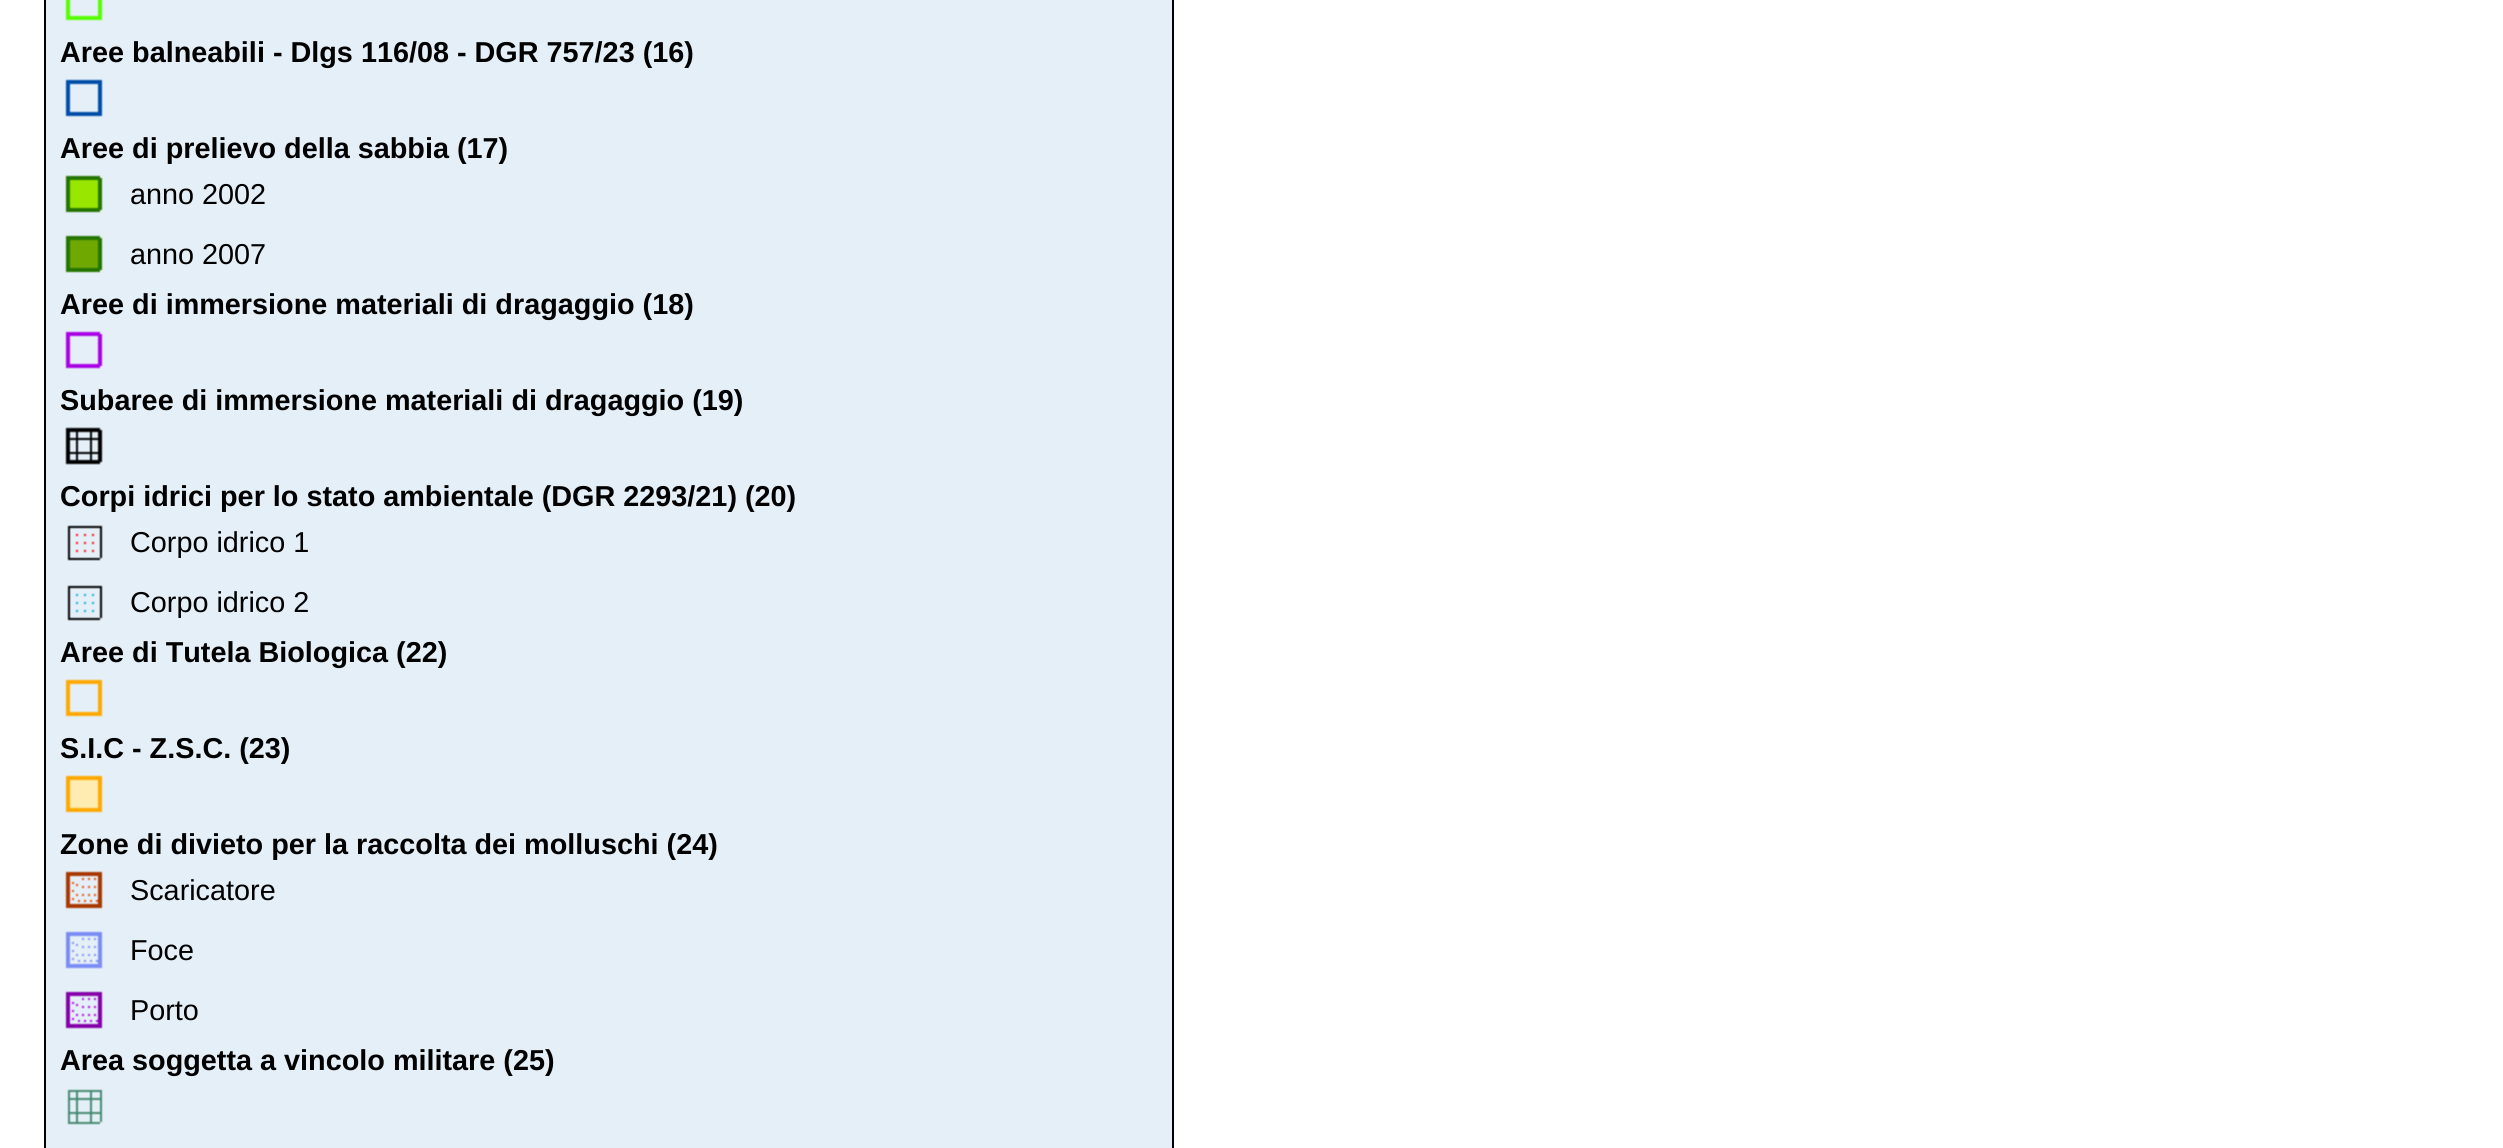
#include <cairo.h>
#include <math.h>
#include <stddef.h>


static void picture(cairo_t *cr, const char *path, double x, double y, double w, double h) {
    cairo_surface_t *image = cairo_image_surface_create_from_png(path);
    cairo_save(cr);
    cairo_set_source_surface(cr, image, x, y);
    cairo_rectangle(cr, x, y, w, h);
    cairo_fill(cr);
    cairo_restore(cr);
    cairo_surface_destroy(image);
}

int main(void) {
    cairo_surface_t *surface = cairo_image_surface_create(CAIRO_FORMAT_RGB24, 2503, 1148);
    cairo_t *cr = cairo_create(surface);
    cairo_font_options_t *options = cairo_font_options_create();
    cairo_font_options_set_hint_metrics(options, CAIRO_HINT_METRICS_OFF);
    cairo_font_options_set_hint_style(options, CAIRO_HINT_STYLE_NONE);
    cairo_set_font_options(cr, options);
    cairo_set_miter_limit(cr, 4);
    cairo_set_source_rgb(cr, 1, 1, 1);
    cairo_paint(cr);
    cairo_set_source_rgb(cr, 0.898, 0.937, 0.969);
    cairo_rectangle(cr, 45, -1, 1128, 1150);
    cairo_fill_preserve(cr);
    cairo_set_source_rgb(cr, 0, 0, 0);
    cairo_stroke(cr);
    picture(cr, "img1.png", 65, 0, 38, 21);
    cairo_select_font_face(cr, "Liberation Sans", CAIRO_FONT_SLANT_NORMAL, CAIRO_FONT_WEIGHT_BOLD);
    cairo_set_font_size(cr, 28.8);
    cairo_move_to(cr, 60, 62);
    cairo_show_text(cr, "Aree balneabili - Dlgs 116/08 - DGR 757/23 (16)");
    picture(cr, "img2.png", 65, 79, 38, 38);
    cairo_move_to(cr, 60, 158);
    cairo_show_text(cr, "Aree di prelievo della sabbia (17)");
    picture(cr, "img3.png", 65, 175, 38, 38);
    cairo_select_font_face(cr, "Liberation Sans", CAIRO_FONT_SLANT_NORMAL, CAIRO_FONT_WEIGHT_NORMAL);
    cairo_move_to(cr, 130, 204);
    cairo_show_text(cr, "anno 2002");
    picture(cr, "img4.png", 65, 235, 38, 38);
    cairo_move_to(cr, 130, 264);
    cairo_show_text(cr, "anno 2007");
    cairo_select_font_face(cr, "Liberation Sans", CAIRO_FONT_SLANT_NORMAL, CAIRO_FONT_WEIGHT_BOLD);
    cairo_move_to(cr, 60, 314);
    cairo_show_text(cr, "Aree di immersione materiali di dragaggio (18)");
    picture(cr, "img5.png", 65, 331, 38, 38);
    cairo_move_to(cr, 60, 410);
    cairo_show_text(cr, "Subaree di immersione materiali di dragaggio (19)");
    picture(cr, "img6.png", 65, 427, 38, 38);
    cairo_move_to(cr, 60, 506);
    cairo_show_text(cr, "Corpi idrici per lo stato ambientale (DGR 2293/21) (20)");
    picture(cr, "img7.png", 67, 525, 36, 36);
    cairo_select_font_face(cr, "Liberation Sans", CAIRO_FONT_SLANT_NORMAL, CAIRO_FONT_WEIGHT_NORMAL);
    cairo_move_to(cr, 130, 552);
    cairo_show_text(cr, "Corpo idrico 1");
    picture(cr, "img8.png", 67, 585, 36, 36);
    cairo_move_to(cr, 130, 612);
    cairo_show_text(cr, "Corpo idrico 2");
    cairo_select_font_face(cr, "Liberation Sans", CAIRO_FONT_SLANT_NORMAL, CAIRO_FONT_WEIGHT_BOLD);
    cairo_move_to(cr, 60, 662);
    cairo_show_text(cr, "Aree di Tutela Biologica (22)");
    picture(cr, "img9.png", 65, 679, 38, 38);
    cairo_move_to(cr, 60, 758);
    cairo_show_text(cr, "S.I.C - Z.S.C. (23)");
    picture(cr, "img10.png", 65, 775, 38, 38);
    cairo_move_to(cr, 60, 854);
    cairo_show_text(cr, "Zone di divieto per la raccolta dei molluschi (24)");
    picture(cr, "img11.png", 65, 871, 38, 38);
    cairo_select_font_face(cr, "Liberation Sans", CAIRO_FONT_SLANT_NORMAL, CAIRO_FONT_WEIGHT_NORMAL);
    cairo_move_to(cr, 130, 900);
    cairo_show_text(cr, "Scaricatore");
    picture(cr, "img12.png", 65, 931, 38, 38);
    cairo_move_to(cr, 130, 960);
    cairo_show_text(cr, "Foce");
    picture(cr, "img13.png", 65, 991, 38, 38);
    cairo_move_to(cr, 130, 1020);
    cairo_show_text(cr, "Porto");
    cairo_select_font_face(cr, "Liberation Sans", CAIRO_FONT_SLANT_NORMAL, CAIRO_FONT_WEIGHT_BOLD);
    cairo_move_to(cr, 60, 1070);
    cairo_show_text(cr, "Area soggetta a vincolo militare (25)");
    picture(cr, "img14.png", 67, 1089, 36, 36);
    cairo_surface_write_to_png(surface, "page.png");
    cairo_font_options_destroy(options);
    cairo_destroy(cr);
    cairo_surface_destroy(surface);
    return 0;
}
